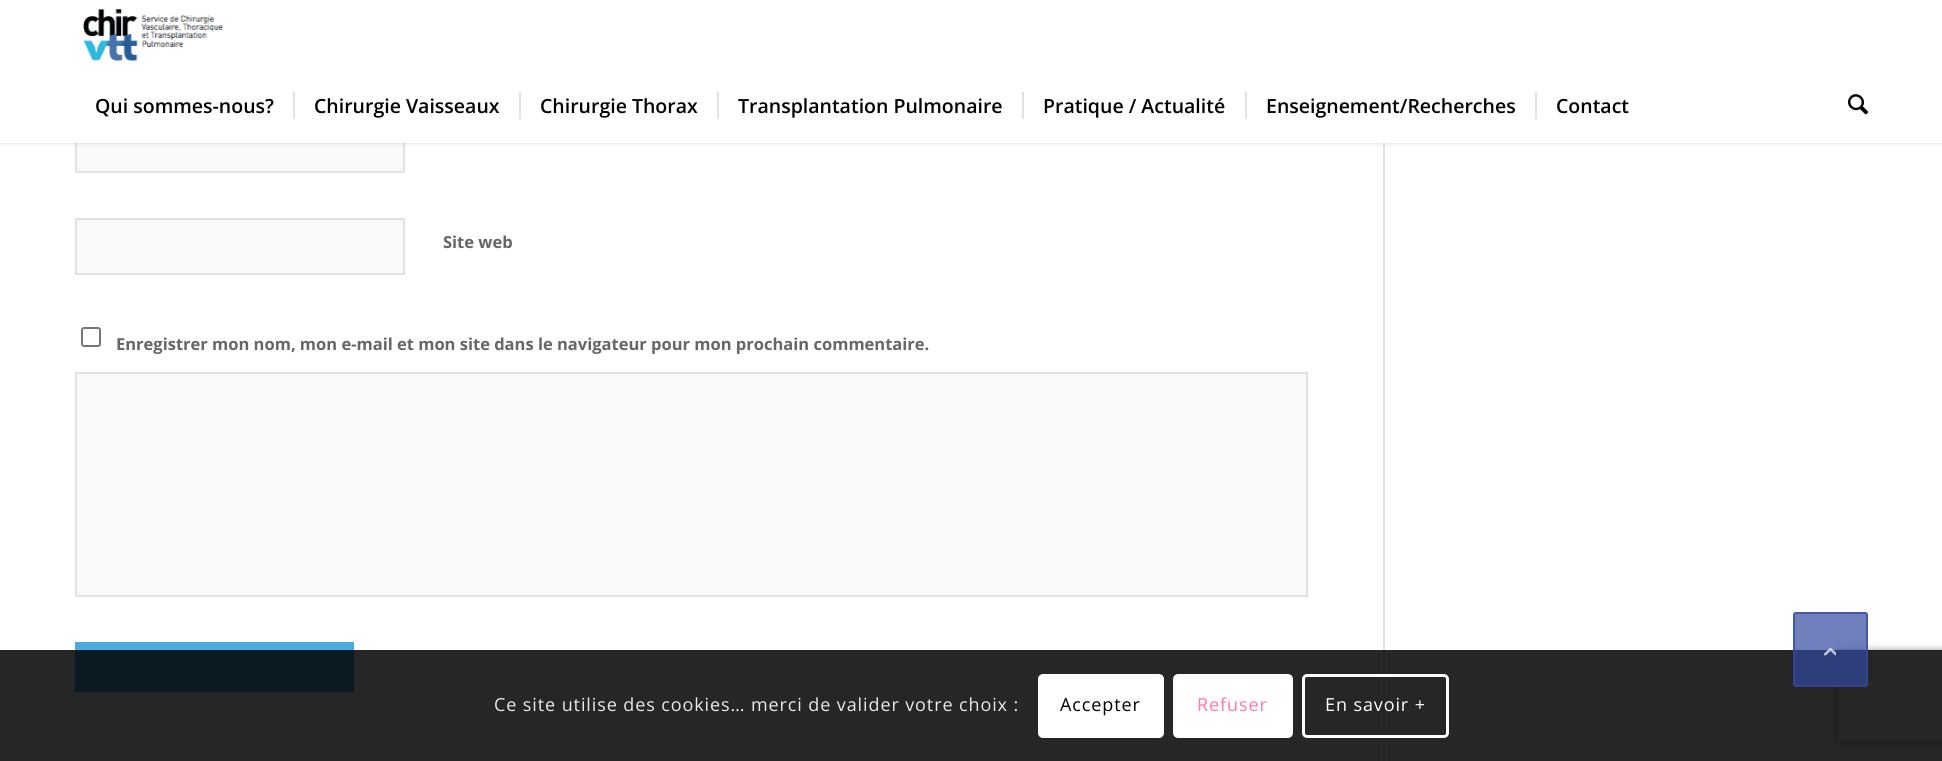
#include <cairo.h>
#include <math.h>
#include <stddef.h>


static void spaced_text(cairo_t *cr, double x, double y, const char *s, double letter, double word) {
    cairo_move_to(cr, x, y);
    while (*s) {
        char ch[5] = {0};
        int n = 0;
        do ch[n++] = *s++; while ((*s & 0xC0) == 0x80);
        cairo_show_text(cr, ch);
        cairo_rel_move_to(cr, letter + word * (*ch == ' '), 0);
    }
}

static void round_rect(cairo_t *cr, double x, double y, double w, double h, double r) {
    cairo_new_sub_path(cr);
    cairo_arc(cr, x + w - r, y + h - r, r, 0, M_PI / 2);
    cairo_arc(cr, x + r, y + h - r, r, M_PI / 2, M_PI);
    cairo_arc(cr, x + r, y + r, r, M_PI, 1.5 * M_PI);
    cairo_arc(cr, x + w - r, y + r, r, 1.5 * M_PI, 2 * M_PI);
    cairo_close_path(cr);
}

static void shadow(cairo_t *cr, double x, double y, double w, double h, double r, double blur, double alpha) {
    cairo_push_group_with_content(cr, CAIRO_CONTENT_ALPHA);
    cairo_set_operator(cr, CAIRO_OPERATOR_SOURCE);
    for (int i = 15; i >= -15 && fmin(w, h) + blur * i / 3 > 0; i -= 2) {
        double e = blur * i / 6;
        cairo_set_source_rgba(cr, 0, 0, 0, alpha * erfc((i - 1) / 8.5) / 2);
        round_rect(cr, x - e, y - e, w + 2 * e, h + 2 * e, fmax(0, fmin(r + e + blur * .6, fmin(w, h) / 2 + e)));
        cairo_fill(cr);
    }
    cairo_pattern_t *soft = cairo_pop_group(cr);
    cairo_mask(cr, soft);
    cairo_pattern_destroy(soft);
}

static void picture(cairo_t *cr, const char *path, double x, double y, double w, double h) {
    cairo_surface_t *image = cairo_image_surface_create_from_png(path);
    cairo_save(cr);
    cairo_set_source_surface(cr, image, x, y);
    cairo_rectangle(cr, x, y, w, h);
    cairo_fill(cr);
    cairo_restore(cr);
    cairo_surface_destroy(image);
}

int main(void) {
    cairo_surface_t *surface = cairo_image_surface_create(CAIRO_FORMAT_RGB24, 1942, 761);
    cairo_t *cr = cairo_create(surface);
    cairo_font_options_t *options = cairo_font_options_create();
    cairo_font_options_set_hint_metrics(options, CAIRO_HINT_METRICS_OFF);
    cairo_font_options_set_hint_style(options, CAIRO_HINT_STYLE_NONE);
    cairo_set_font_options(cr, options);
    cairo_set_miter_limit(cr, 4);
    cairo_set_source_rgb(cr, 1, 1, 1);
    cairo_paint(cr);
    cairo_set_source_rgb(cr, 0.882, 0.882, 0.882);
    cairo_rectangle(cr, 1383, 143, 2, 618);
    cairo_fill(cr);
    cairo_set_source_rgb(cr, 0.973, 0.973, 0.973);
    cairo_rectangle(cr, 77, 143, 326, 28);
    cairo_fill(cr);
    cairo_rectangle(cr, 76, 117, 328, 55);
    cairo_set_source_rgb(cr, 0.882, 0.882, 0.882);
    cairo_stroke(cr);
    cairo_set_source_rgb(cr, 0, 0, 0);
    shadow(cr, -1, -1, 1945, 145, 0, 1.5, 0.1);
    cairo_set_source_rgb(cr, 1, 1, 1);
    cairo_rectangle(cr, 0, 0, 1942, 143);
    cairo_fill(cr);
    picture(cr, "img1.png", 83, 9, 141, 53);
    cairo_select_font_face(cr, "Open Sans SemiBold", CAIRO_FONT_SLANT_NORMAL, CAIRO_FONT_WEIGHT_NORMAL);
    cairo_set_font_size(cr, 19.5);
    cairo_set_source_rgb(cr, 0, 0, 0);
    cairo_move_to(cr, 95, 113);
    cairo_show_text(cr, "Qui sommes-nous?");
    cairo_move_to(cr, 314, 113);
    cairo_show_text(cr, "Chirurgie Vaisseaux");
    cairo_set_source_rgb(cr, 0.882, 0.882, 0.882);
    cairo_rectangle(cr, 293, 92, 2, 27);
    cairo_fill(cr);
    cairo_set_source_rgb(cr, 0, 0, 0);
    cairo_move_to(cr, 540, 113);
    cairo_show_text(cr, "Chirurgie Thorax");
    cairo_set_source_rgb(cr, 0.882, 0.882, 0.882);
    cairo_rectangle(cr, 519, 92, 2, 27);
    cairo_fill(cr);
    cairo_set_source_rgb(cr, 0, 0, 0);
    cairo_move_to(cr, 738, 113);
    cairo_show_text(cr, "Transplantation Pulmonaire");
    cairo_set_source_rgb(cr, 0.882, 0.882, 0.882);
    cairo_rectangle(cr, 717, 92, 2, 27);
    cairo_fill(cr);
    cairo_set_source_rgb(cr, 0, 0, 0);
    cairo_move_to(cr, 1043, 113);
    cairo_show_text(cr, "Pratique / Actualité");
    cairo_set_source_rgb(cr, 0.882, 0.882, 0.882);
    cairo_rectangle(cr, 1022, 92, 2, 27);
    cairo_fill(cr);
    cairo_set_source_rgb(cr, 0, 0, 0);
    cairo_move_to(cr, 1266, 113);
    cairo_show_text(cr, "Enseignement/Recherches");
    cairo_set_source_rgb(cr, 0.882, 0.882, 0.882);
    cairo_rectangle(cr, 1245, 92, 2, 27);
    cairo_fill(cr);
    cairo_set_source_rgb(cr, 0, 0, 0);
    cairo_move_to(cr, 1556, 113);
    cairo_show_text(cr, "Contact");
    cairo_set_source_rgb(cr, 0.882, 0.882, 0.882);
    cairo_rectangle(cr, 1535, 92, 2, 27);
    cairo_fill(cr);
    picture(cr, "img2.png", 1848, 94, 20, 21);
    cairo_set_source_rgb(cr, 0.973, 0.973, 0.973);
    cairo_rectangle(cr, 76, 219, 328, 55);
    cairo_fill_preserve(cr);
    cairo_set_source_rgb(cr, 0.882, 0.882, 0.882);
    cairo_stroke(cr);
    cairo_select_font_face(cr, "Open Sans", CAIRO_FONT_SLANT_NORMAL, CAIRO_FONT_WEIGHT_BOLD);
    cairo_set_font_size(cr, 16.5);
    cairo_set_source_rgb(cr, 0.4, 0.4, 0.4);
    cairo_move_to(cr, 443, 248);
    cairo_show_text(cr, "Site web");
    round_rect(cr, 82, 328, 18, 18, 2);
    cairo_set_source_rgb(cr, 0.463, 0.463, 0.463);
    cairo_stroke(cr);
    cairo_set_source_rgb(cr, 0.4, 0.4, 0.4);
    cairo_move_to(cr, 116, 350);
    cairo_show_text(cr, "Enregistrer mon nom, mon e-mail et mon site dans le navigateur pour mon prochain commentaire.");
    cairo_set_source_rgb(cr, 0.973, 0.973, 0.973);
    cairo_rectangle(cr, 76, 373, 1231, 223);
    cairo_fill_preserve(cr);
    cairo_set_source_rgb(cr, 0.882, 0.882, 0.882);
    cairo_stroke(cr);
    cairo_set_source_rgb(cr, 0.275, 0.667, 0.894);
    cairo_rectangle(cr, 75, 642, 279, 50);
    cairo_fill(cr);
    cairo_save(cr);
    cairo_set_fill_rule(cr, CAIRO_FILL_RULE_EVEN_ODD);
    cairo_new_path(cr);
    cairo_move_to(cr, 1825, 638);
    cairo_line_to(cr, 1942, 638);
    cairo_line_to(cr, 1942, 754);
    cairo_line_to(cr, 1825, 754);
    cairo_close_path(cr);
    cairo_move_to(cr, 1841, 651);
    cairo_line_to(cr, 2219, 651);
    cairo_curve_to(cr, 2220.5, 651, 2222, 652.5, 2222, 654);
    cairo_line_to(cr, 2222, 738);
    cairo_curve_to(cr, 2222, 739.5, 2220.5, 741, 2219, 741);
    cairo_line_to(cr, 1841, 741);
    cairo_curve_to(cr, 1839.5, 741, 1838, 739.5, 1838, 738);
    cairo_line_to(cr, 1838, 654);
    cairo_curve_to(cr, 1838, 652.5, 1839.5, 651, 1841, 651);
    cairo_close_path(cr);
    cairo_clip(cr);
    cairo_set_source_rgb(cr, 0.502, 0.502, 0.502);
    shadow(cr, 1838, 651, 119, 90, 3, 4, 1);
    cairo_restore(cr);
    cairo_set_source_rgba(cr, 0, 0, 0, 0.85);
    cairo_rectangle(cr, 0, 650, 1942, 111);
    cairo_fill(cr);
    cairo_set_source_rgba(cr, 0.2, 0.29, 0.62, 0.7);
    round_rect(cr, 1793, 612, 75, 75, 3);
    cairo_fill(cr);
    round_rect(cr, 1794, 613, 73, 73, 2);
    cairo_stroke(cr);
    picture(cr, "img3.png", 1824, 648, 12, 8);
    cairo_select_font_face(cr, "Open Sans", CAIRO_FONT_SLANT_NORMAL, CAIRO_FONT_WEIGHT_NORMAL);
    cairo_set_font_size(cr, 18);
    cairo_set_source_rgb(cr, 0.914, 0.914, 0.914);
    spaced_text(cr, 494, 711, "Ce site utilise des cookies… merci de valider votre choix :", 0.9, 0);
    cairo_set_source_rgb(cr, 1, 1, 1);
    round_rect(cr, 1038, 674, 126, 64, 5);
    cairo_fill(cr);
    cairo_set_source_rgb(cr, 0, 0, 0);
    spaced_text(cr, 1060, 711, "Accepter", 0.9, 0);
    cairo_set_source_rgb(cr, 1, 1, 1);
    round_rect(cr, 1174.5, 675.5, 117, 61, 3.5);
    cairo_fill_preserve(cr);
    cairo_set_line_width(cr, 3);
    cairo_stroke(cr);
    cairo_set_source_rgb(cr, 1, 0.459, 0.71);
    spaced_text(cr, 1197, 711, "Refuser", 0.9, 0);
    round_rect(cr, 1303.5, 675.5, 144, 61, 3.5);
    cairo_set_source_rgb(cr, 1, 1, 1);
    cairo_stroke(cr);
    spaced_text(cr, 1325, 711, "En savoir +", 0.9, 0);
    cairo_surface_write_to_png(surface, "page.png");
    cairo_font_options_destroy(options);
    cairo_destroy(cr);
    cairo_surface_destroy(surface);
    return 0;
}
